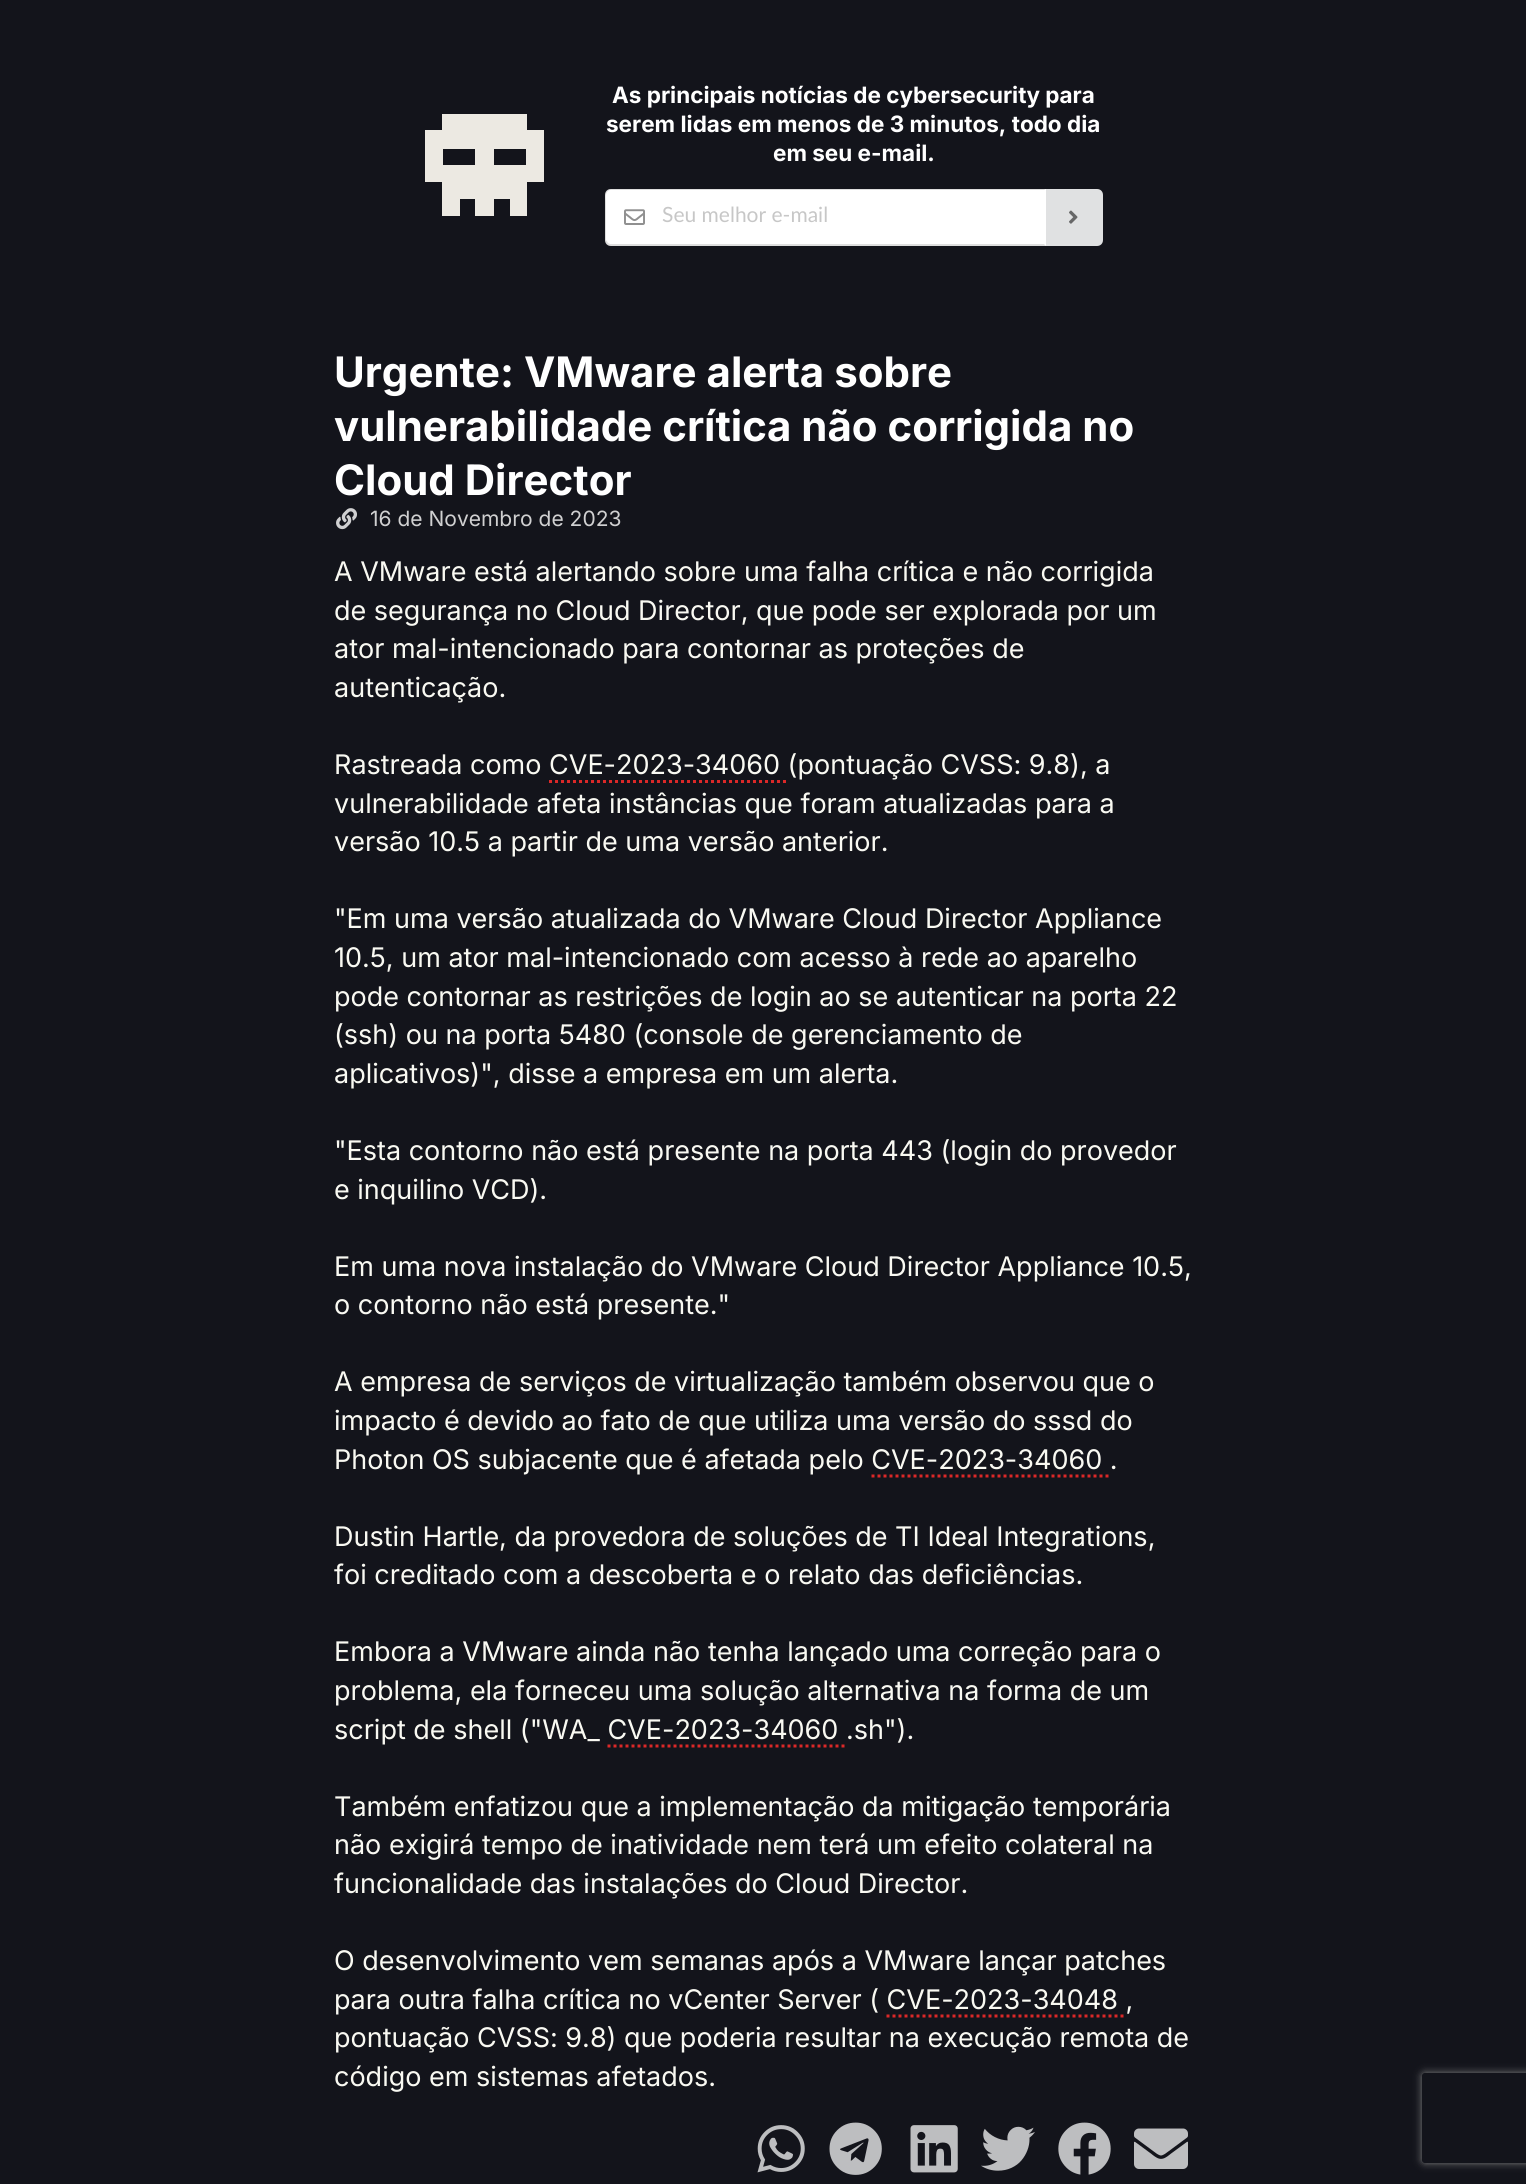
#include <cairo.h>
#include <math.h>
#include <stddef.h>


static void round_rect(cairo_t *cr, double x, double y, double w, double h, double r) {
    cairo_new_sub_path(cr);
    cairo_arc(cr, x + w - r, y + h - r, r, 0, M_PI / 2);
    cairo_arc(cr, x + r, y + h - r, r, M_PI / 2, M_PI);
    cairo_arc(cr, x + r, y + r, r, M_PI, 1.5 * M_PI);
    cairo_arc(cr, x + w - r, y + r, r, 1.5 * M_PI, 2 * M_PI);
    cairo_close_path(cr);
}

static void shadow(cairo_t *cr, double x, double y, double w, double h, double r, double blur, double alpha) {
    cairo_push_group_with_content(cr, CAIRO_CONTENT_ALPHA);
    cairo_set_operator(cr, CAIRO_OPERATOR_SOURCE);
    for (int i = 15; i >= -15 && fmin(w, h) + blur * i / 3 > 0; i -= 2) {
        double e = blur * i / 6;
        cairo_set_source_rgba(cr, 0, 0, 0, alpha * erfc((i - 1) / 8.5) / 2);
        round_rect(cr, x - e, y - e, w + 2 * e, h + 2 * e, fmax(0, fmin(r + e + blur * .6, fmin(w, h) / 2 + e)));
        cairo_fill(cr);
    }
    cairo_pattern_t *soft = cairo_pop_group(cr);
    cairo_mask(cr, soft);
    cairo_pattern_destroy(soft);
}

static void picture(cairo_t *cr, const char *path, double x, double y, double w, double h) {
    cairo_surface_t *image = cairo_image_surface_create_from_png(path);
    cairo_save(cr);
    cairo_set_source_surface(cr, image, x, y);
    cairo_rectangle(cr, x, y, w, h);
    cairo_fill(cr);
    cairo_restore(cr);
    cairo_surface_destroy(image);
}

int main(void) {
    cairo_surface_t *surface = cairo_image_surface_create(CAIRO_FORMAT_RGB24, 1526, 2184);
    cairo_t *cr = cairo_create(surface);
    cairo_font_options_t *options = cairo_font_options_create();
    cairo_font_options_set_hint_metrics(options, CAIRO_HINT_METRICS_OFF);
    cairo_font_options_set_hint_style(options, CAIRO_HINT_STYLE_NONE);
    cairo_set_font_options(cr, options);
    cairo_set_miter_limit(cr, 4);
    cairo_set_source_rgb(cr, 0.075, 0.082, 0.106);
    cairo_paint(cr);
    cairo_save(cr);
    cairo_rectangle(cr, 425, 114, 120, 102);
    cairo_clip(cr);
    cairo_set_source_rgb(cr, 0.922, 0.914, 0.886);
    cairo_set_fill_rule(cr, CAIRO_FILL_RULE_EVEN_ODD);
    cairo_new_path(cr);
    cairo_move_to(cr, 527, 130);
    cairo_line_to(cr, 527, 114);
    cairo_line_to(cr, 442, 114);
    cairo_line_to(cr, 442, 130);
    cairo_line_to(cr, 425, 130);
    cairo_line_to(cr, 425, 182);
    cairo_line_to(cr, 442, 182);
    cairo_line_to(cr, 442, 217);
    cairo_line_to(cr, 460, 217);
    cairo_line_to(cr, 460, 199);
    cairo_line_to(cr, 475, 199);
    cairo_line_to(cr, 475, 217);
    cairo_line_to(cr, 494, 217);
    cairo_line_to(cr, 494, 199);
    cairo_line_to(cr, 510, 199);
    cairo_line_to(cr, 510, 217);
    cairo_line_to(cr, 527, 217);
    cairo_line_to(cr, 527, 182);
    cairo_line_to(cr, 544, 182);
    cairo_line_to(cr, 544, 130);
    cairo_close_path(cr);
    cairo_move_to(cr, 475, 165);
    cairo_line_to(cr, 443, 165);
    cairo_line_to(cr, 443, 149);
    cairo_line_to(cr, 475, 149);
    cairo_close_path(cr);
    cairo_move_to(cr, 526, 165);
    cairo_line_to(cr, 494, 165);
    cairo_line_to(cr, 494, 149);
    cairo_line_to(cr, 526, 149);
    cairo_close_path(cr);
    cairo_fill(cr);
    cairo_restore(cr);
    cairo_select_font_face(cr, "Inter", CAIRO_FONT_SLANT_NORMAL, CAIRO_FONT_WEIGHT_BOLD);
    cairo_set_font_size(cr, 22.5);
    cairo_set_source_rgb(cr, 1, 1, 1);
    cairo_move_to(cr, 612, 103);
    cairo_show_text(cr, "As principais notícias de cybersecurity para");
    cairo_move_to(cr, 606, 132);
    cairo_show_text(cr, "serem lidas em menos de 3 minutos, todo dia");
    cairo_move_to(cr, 773, 161);
    cairo_show_text(cr, "em seu e-mail.");
    cairo_new_path(cr);
    cairo_move_to(cr, 611, 189);
    cairo_line_to(cr, 1046, 189);
    cairo_line_to(cr, 1046, 246);
    cairo_line_to(cr, 611, 246);
    cairo_curve_to(cr, 607.5, 246, 605, 243.5, 605, 240);
    cairo_line_to(cr, 605, 195);
    cairo_curve_to(cr, 605, 191.5, 607.5, 189, 611, 189);
    cairo_close_path(cr);
    cairo_fill(cr);
    picture(cr, "img1.png", 624, 209, 21, 16);
    cairo_set_source_rgba(cr, 0.133, 0.141, 0.149, 0.15);
    cairo_new_path(cr);
    cairo_move_to(cr, 610, 189);
    cairo_curve_to(cr, 609, 189, 607, 190, 606, 191);
    cairo_line_to(cr, 607, 192);
    cairo_curve_to(cr, 608, 191, 609, 190, 610, 190);
    cairo_line_to(cr, 1044, 190);
    cairo_line_to(cr, 1046, 189);
    cairo_close_path(cr);
    cairo_fill(cr);
    cairo_new_path(cr);
    cairo_move_to(cr, 1046, 246);
    cairo_line_to(cr, 1044, 244);
    cairo_line_to(cr, 610, 244);
    cairo_line_to(cr, 608, 243);
    cairo_line_to(cr, 606, 244);
    cairo_curve_to(cr, 607, 245, 609, 246, 610, 246);
    cairo_close_path(cr);
    cairo_fill(cr);
    cairo_new_path(cr);
    cairo_move_to(cr, 604, 193);
    cairo_line_to(cr, 606, 191);
    cairo_line_to(cr, 607, 192);
    cairo_curve_to(cr, 605, 195, 606, 199, 606, 202);
    cairo_line_to(cr, 606, 240);
    cairo_line_to(cr, 608, 243);
    cairo_line_to(cr, 606, 244);
    cairo_line_to(cr, 604, 242);
    cairo_close_path(cr);
    cairo_fill(cr);
    cairo_select_font_face(cr, "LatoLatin", CAIRO_FONT_SLANT_NORMAL, CAIRO_FONT_WEIGHT_NORMAL);
    cairo_set_font_size(cr, 21);
    cairo_set_source_rgb(cr, 0.78, 0.78, 0.78);
    cairo_move_to(cr, 662, 222);
    cairo_show_text(cr, "Seu melhor e-mail");
    cairo_set_source_rgb(cr, 0.878, 0.882, 0.886);
    cairo_new_path(cr);
    cairo_move_to(cr, 1046, 189);
    cairo_line_to(cr, 1097, 189);
    cairo_curve_to(cr, 1100.5, 189, 1103, 191.5, 1103, 195);
    cairo_line_to(cr, 1103, 240);
    cairo_curve_to(cr, 1103, 243.5, 1100.5, 246, 1097, 246);
    cairo_line_to(cr, 1046, 246);
    cairo_close_path(cr);
    cairo_fill(cr);
    picture(cr, "img2.png", 1069, 210, 9, 14);
    cairo_select_font_face(cr, "Inter", CAIRO_FONT_SLANT_NORMAL, CAIRO_FONT_WEIGHT_BOLD);
    cairo_set_font_size(cr, 42);
    cairo_set_source_rgb(cr, 1, 1, 1);
    cairo_move_to(cr, 334, 387);
    cairo_show_text(cr, "Urgente: VMware alerta sobre");
    cairo_move_to(cr, 334, 441);
    cairo_show_text(cr, "vulnerabilidade crítica não corrigida no");
    cairo_move_to(cr, 334, 495);
    cairo_show_text(cr, "Cloud Director");
    picture(cr, "img3.png", 336, 508, 21, 22);
    cairo_select_font_face(cr, "Inter", CAIRO_FONT_SLANT_NORMAL, CAIRO_FONT_WEIGHT_NORMAL);
    cairo_set_font_size(cr, 21);
    cairo_set_source_rgb(cr, 0.816, 0.816, 0.82);
    cairo_move_to(cr, 370, 526);
    cairo_show_text(cr, "16 de Novembro de 2023");
    cairo_set_font_size(cr, 27);
    cairo_set_source_rgb(cr, 0.973, 0.973, 0.949);
    cairo_move_to(cr, 334, 581);
    cairo_show_text(cr, "A VMware está alertando sobre uma falha crítica e não corrigida");
    cairo_move_to(cr, 334, 620);
    cairo_show_text(cr, "de segurança no Cloud Director, que pode ser explorada por um");
    cairo_move_to(cr, 334, 658);
    cairo_show_text(cr, "ator mal-intencionado para contornar as proteções de");
    cairo_move_to(cr, 334, 697);
    cairo_show_text(cr, "autenticação.");
    cairo_move_to(cr, 334, 774);
    cairo_show_text(cr, "Rastreada como CVE-2023-34060 (pontuação CVSS: 9.8), a");
    cairo_new_path(cr);
    cairo_move_to(cr, 549, 781.5);
    cairo_line_to(cr, 787.5, 781.5);
    cairo_set_source_rgb(cr, 0.859, 0.157, 0.157);
    cairo_set_line_width(cr, 3);
    cairo_set_dash(cr, (double[]){3, 3}, 2, 0);
    cairo_stroke(cr);
    cairo_set_source_rgb(cr, 0.973, 0.973, 0.949);
    cairo_move_to(cr, 334, 813);
    cairo_show_text(cr, "vulnerabilidade afeta instâncias que foram atualizadas para a");
    cairo_move_to(cr, 334, 851);
    cairo_show_text(cr, "versão 10.5 a partir de uma versão anterior.");
    cairo_move_to(cr, 334, 928);
    cairo_show_text(cr, "\"Em uma versão atualizada do VMware Cloud Director Appliance");
    cairo_move_to(cr, 334, 967);
    cairo_show_text(cr, "10.5, um ator mal-intencionado com acesso à rede ao aparelho");
    cairo_move_to(cr, 334, 1006);
    cairo_show_text(cr, "pode contornar as restrições de login ao se autenticar na porta 22");
    cairo_move_to(cr, 334, 1044);
    cairo_show_text(cr, "(ssh) ou na porta 5480 (console de gerenciamento de");
    cairo_move_to(cr, 334, 1083);
    cairo_show_text(cr, "aplicativos)\", disse a empresa em um alerta.");
    cairo_move_to(cr, 334, 1160);
    cairo_show_text(cr, "\"Esta contorno não está presente na porta 443 (login do provedor");
    cairo_move_to(cr, 334, 1199);
    cairo_show_text(cr, "e inquilino VCD).");
    cairo_move_to(cr, 334, 1276);
    cairo_show_text(cr, "Em uma nova instalação do VMware Cloud Director Appliance 10.5,");
    cairo_move_to(cr, 334, 1314);
    cairo_show_text(cr, "o contorno não está presente.\"");
    cairo_move_to(cr, 334, 1391);
    cairo_show_text(cr, "A empresa de serviços de virtualização também observou que o");
    cairo_move_to(cr, 334, 1430);
    cairo_show_text(cr, "impacto é devido ao fato de que utiliza uma versão do sssd do");
    cairo_move_to(cr, 334, 1469);
    cairo_show_text(cr, "Photon OS subjacente que é afetada pelo CVE-2023-34060 .");
    cairo_new_path(cr);
    cairo_move_to(cr, 871.5, 1476);
    cairo_line_to(cr, 1110, 1476);
    cairo_set_source_rgb(cr, 0.859, 0.157, 0.157);
    cairo_stroke(cr);
    cairo_set_source_rgb(cr, 0.973, 0.973, 0.949);
    cairo_move_to(cr, 334, 1546);
    cairo_show_text(cr, "Dustin Hartle, da provedora de soluções de TI Ideal Integrations,");
    cairo_move_to(cr, 334, 1584);
    cairo_show_text(cr, "foi creditado com a descoberta e o relato das deficiências.");
    cairo_move_to(cr, 334, 1661);
    cairo_show_text(cr, "Embora a VMware ainda não tenha lançado uma correção para o");
    cairo_move_to(cr, 334, 1700);
    cairo_show_text(cr, "problema, ela forneceu uma solução alternativa na forma de um");
    cairo_move_to(cr, 334, 1739);
    cairo_show_text(cr, "script de shell (\"WA_ CVE-2023-34060 .sh\").");
    cairo_new_path(cr);
    cairo_move_to(cr, 607.5, 1746);
    cairo_line_to(cr, 846, 1746);
    cairo_set_source_rgb(cr, 0.859, 0.157, 0.157);
    cairo_stroke(cr);
    cairo_set_source_rgb(cr, 0.973, 0.973, 0.949);
    cairo_move_to(cr, 334, 1816);
    cairo_show_text(cr, "Também enfatizou que a implementação da mitigação temporária");
    cairo_move_to(cr, 334, 1854);
    cairo_show_text(cr, "não exigirá tempo de inatividade nem terá um efeito colateral na");
    cairo_move_to(cr, 334, 1893);
    cairo_show_text(cr, "funcionalidade das instalações do Cloud Director.");
    cairo_move_to(cr, 334, 1970);
    cairo_show_text(cr, "O desenvolvimento vem semanas após a VMware lançar patches");
    cairo_move_to(cr, 334, 2009);
    cairo_show_text(cr, "para outra falha crítica no vCenter Server ( CVE-2023-34048 ,");
    cairo_new_path(cr);
    cairo_move_to(cr, 886.5, 2016);
    cairo_line_to(cr, 1125, 2016);
    cairo_set_source_rgb(cr, 0.859, 0.157, 0.157);
    cairo_stroke(cr);
    cairo_set_source_rgb(cr, 0.973, 0.973, 0.949);
    cairo_move_to(cr, 334, 2047);
    cairo_show_text(cr, "pontuação CVSS: 9.8) que poderia resultar na execução remota de");
    cairo_move_to(cr, 334, 2086);
    cairo_show_text(cr, "código em sistemas afetados.");
    picture(cr, "img4.png", 757, 2125, 48, 48);
    picture(cr, "img5.png", 829, 2122, 53, 53);
    picture(cr, "img6.png", 910, 2125, 48, 48);
    picture(cr, "img7.png", 981, 2126, 54, 45);
    picture(cr, "img8.png", 1058, 2122, 53, 53);
    picture(cr, "img9.png", 1134, 2128, 54, 41);
    cairo_save(cr);
    cairo_set_fill_rule(cr, CAIRO_FILL_RULE_EVEN_ODD);
    cairo_new_path(cr);
    cairo_move_to(cr, 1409, 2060);
    cairo_line_to(cr, 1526, 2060);
    cairo_line_to(cr, 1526, 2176);
    cairo_line_to(cr, 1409, 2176);
    cairo_close_path(cr);
    cairo_move_to(cr, 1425, 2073);
    cairo_line_to(cr, 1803, 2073);
    cairo_curve_to(cr, 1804.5, 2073, 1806, 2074.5, 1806, 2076);
    cairo_line_to(cr, 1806, 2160);
    cairo_curve_to(cr, 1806, 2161.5, 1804.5, 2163, 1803, 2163);
    cairo_line_to(cr, 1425, 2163);
    cairo_curve_to(cr, 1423.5, 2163, 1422, 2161.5, 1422, 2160);
    cairo_line_to(cr, 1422, 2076);
    cairo_curve_to(cr, 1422, 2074.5, 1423.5, 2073, 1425, 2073);
    cairo_close_path(cr);
    cairo_clip(cr);
    cairo_set_source_rgb(cr, 0.502, 0.502, 0.502);
    shadow(cr, 1422, 2073, 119, 90, 3, 4, 1);
    cairo_restore(cr);
    cairo_surface_write_to_png(surface, "page.png");
    cairo_font_options_destroy(options);
    cairo_destroy(cr);
    cairo_surface_destroy(surface);
    return 0;
}
